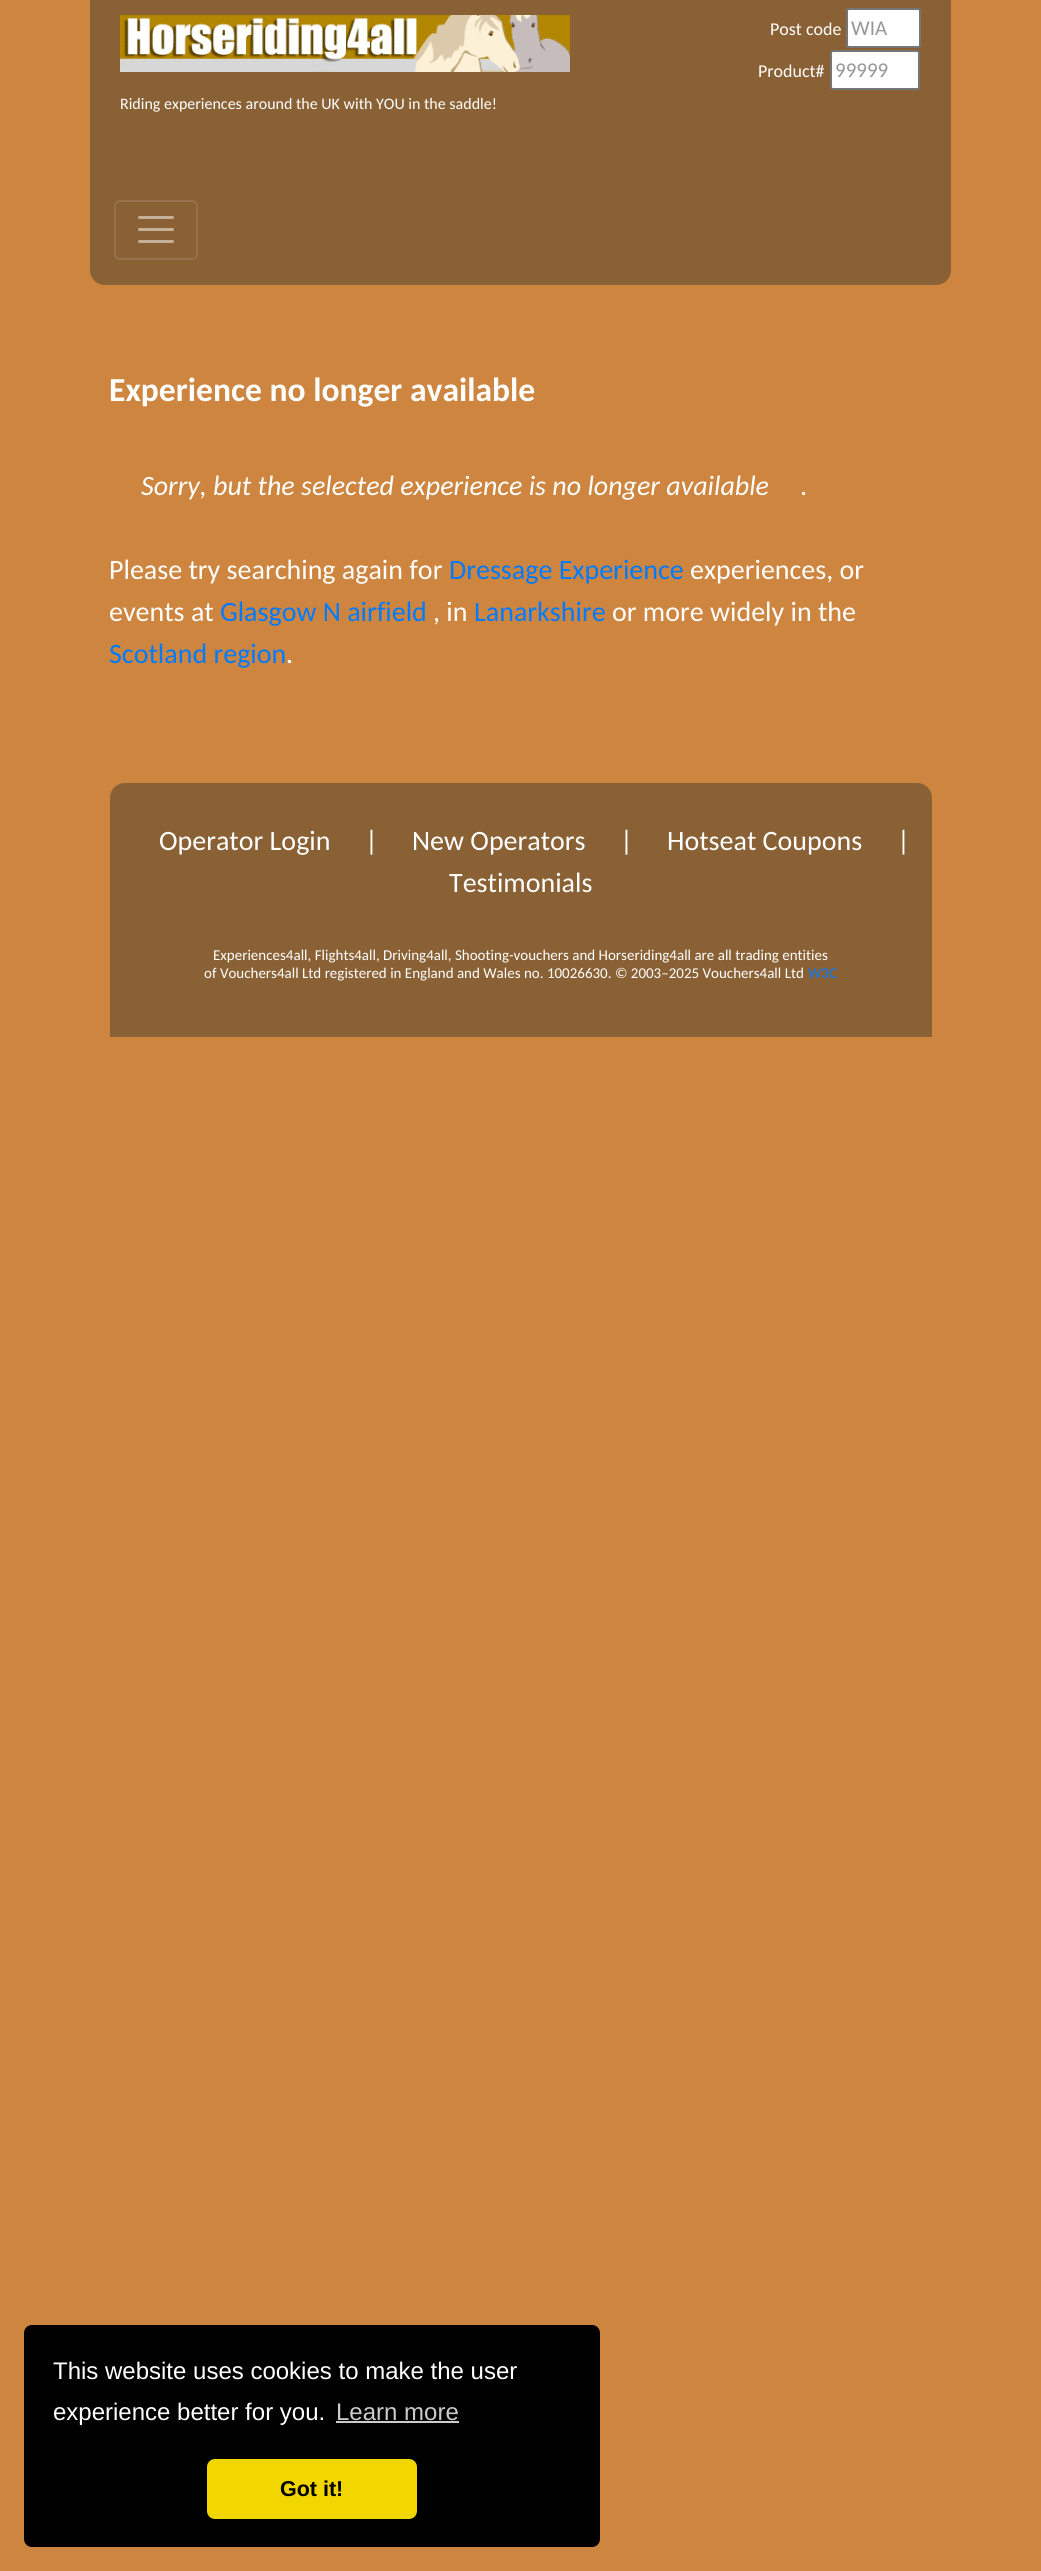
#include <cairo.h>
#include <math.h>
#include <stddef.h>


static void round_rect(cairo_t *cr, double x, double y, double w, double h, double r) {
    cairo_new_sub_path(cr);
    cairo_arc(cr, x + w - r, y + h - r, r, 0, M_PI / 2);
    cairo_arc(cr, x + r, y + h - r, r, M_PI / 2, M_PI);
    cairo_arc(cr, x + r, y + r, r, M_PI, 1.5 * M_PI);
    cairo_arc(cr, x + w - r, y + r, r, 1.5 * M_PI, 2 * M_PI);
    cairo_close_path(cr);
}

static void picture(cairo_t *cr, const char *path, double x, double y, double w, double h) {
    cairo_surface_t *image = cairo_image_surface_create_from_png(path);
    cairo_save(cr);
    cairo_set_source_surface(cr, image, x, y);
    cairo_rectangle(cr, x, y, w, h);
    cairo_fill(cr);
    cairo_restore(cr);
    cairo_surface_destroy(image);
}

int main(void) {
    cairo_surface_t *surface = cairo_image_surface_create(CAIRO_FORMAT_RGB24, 1041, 2571);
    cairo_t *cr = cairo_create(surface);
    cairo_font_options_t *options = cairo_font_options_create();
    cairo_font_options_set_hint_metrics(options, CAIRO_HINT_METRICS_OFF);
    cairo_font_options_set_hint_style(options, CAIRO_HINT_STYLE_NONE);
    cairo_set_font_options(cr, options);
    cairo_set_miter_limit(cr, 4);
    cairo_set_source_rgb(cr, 0.804, 0.522, 0.247);
    cairo_paint(cr);
    cairo_set_source_rgb(cr, 0.541, 0.38, 0.208);
    cairo_rectangle(cr, 90, 0, 861, 173);
    cairo_fill(cr);
    cairo_select_font_face(cr, "Carlito", CAIRO_FONT_SLANT_NORMAL, CAIRO_FONT_WEIGHT_NORMAL);
    cairo_set_font_size(cr, 18);
    cairo_set_source_rgb(cr, 1, 1, 1);
    cairo_move_to(cr, 770, 35);
    cairo_show_text(cr, "Post code");
    round_rect(cr, 847, 9, 73, 38, 2);
    cairo_fill_preserve(cr);
    cairo_set_source_rgb(cr, 0.463, 0.463, 0.463);
    cairo_stroke(cr);
    cairo_set_font_size(cr, 21);
    cairo_set_source_rgb(cr, 0.588, 0.588, 0.588);
    cairo_move_to(cr, 851, 35);
    cairo_show_text(cr, "WIA");
    cairo_set_font_size(cr, 18);
    cairo_set_source_rgb(cr, 1, 1, 1);
    cairo_move_to(cr, 758, 77);
    cairo_show_text(cr, "Product#");
    round_rect(cr, 831, 51, 88, 38, 2);
    cairo_fill_preserve(cr);
    cairo_set_source_rgb(cr, 0.463, 0.463, 0.463);
    cairo_stroke(cr);
    cairo_set_font_size(cr, 21);
    cairo_set_source_rgb(cr, 0.588, 0.588, 0.588);
    cairo_move_to(cr, 835, 77);
    cairo_show_text(cr, "99999");
    picture(cr, "img1.png", 120, 15, 450, 57);
    cairo_set_font_size(cr, 16);
    cairo_set_source_rgb(cr, 1, 1, 1);
    cairo_move_to(cr, 120, 109);
    cairo_show_text(cr, "Riding experiences around the UK with YOU in the saddle!");
    cairo_set_source_rgb(cr, 0.541, 0.38, 0.208);
    cairo_new_path(cr);
    cairo_move_to(cr, 90, 173);
    cairo_line_to(cr, 951, 173);
    cairo_line_to(cr, 951, 270);
    cairo_curve_to(cr, 951, 278.5, 944.5, 285, 936, 285);
    cairo_line_to(cr, 105, 285);
    cairo_curve_to(cr, 96.5, 285, 90, 278.5, 90, 270);
    cairo_close_path(cr);
    cairo_fill(cr);
    round_rect(cr, 115, 201, 82, 58, 5);
    cairo_set_source_rgb(cr, 0.588, 0.443, 0.286);
    cairo_stroke(cr);
    cairo_new_path(cr);
    cairo_move_to(cr, 139.5, 217.5);
    cairo_line_to(cr, 172.5, 217.5);
    cairo_move_to(cr, 139.5, 229.5);
    cairo_line_to(cr, 172.5, 229.5);
    cairo_move_to(cr, 139.5, 241.5);
    cairo_line_to(cr, 172.5, 241.5);
    cairo_set_source_rgb(cr, 0.773, 0.69, 0.604);
    cairo_set_line_width(cr, 3);
    cairo_set_line_cap(cr, CAIRO_LINE_CAP_ROUND);
    cairo_stroke(cr);
    cairo_select_font_face(cr, "Carlito", CAIRO_FONT_SLANT_NORMAL, CAIRO_FONT_WEIGHT_BOLD);
    cairo_set_font_size(cr, 33.6);
    cairo_set_source_rgb(cr, 1, 1, 1);
    cairo_move_to(cr, 109, 401);
    cairo_show_text(cr, "Experience no longer available");
    cairo_select_font_face(cr, "Carlito", CAIRO_FONT_SLANT_ITALIC, CAIRO_FONT_WEIGHT_NORMAL);
    cairo_set_font_size(cr, 28);
    cairo_move_to(cr, 141, 495);
    cairo_show_text(cr, "Sorry, but the selected experience is no longer available");
    cairo_select_font_face(cr, "Carlito", CAIRO_FONT_SLANT_NORMAL, CAIRO_FONT_WEIGHT_NORMAL);
    cairo_move_to(cr, 800, 495);
    cairo_show_text(cr, ".");
    cairo_move_to(cr, 109, 579);
    cairo_show_text(cr, "Please try searching again for");
    cairo_set_source_rgb(cr, 0, 0.482, 1);
    cairo_move_to(cr, 449, 579);
    cairo_show_text(cr, "Dressage Experience");
    cairo_set_source_rgb(cr, 1, 1, 1);
    cairo_move_to(cr, 690, 579);
    cairo_show_text(cr, "experiences, or");
    cairo_move_to(cr, 109, 621);
    cairo_show_text(cr, "events at");
    cairo_set_source_rgb(cr, 0, 0.482, 1);
    cairo_move_to(cr, 220, 621);
    cairo_show_text(cr, "Glasgow N airfield");
    cairo_set_source_rgb(cr, 1, 1, 1);
    cairo_move_to(cr, 433, 621);
    cairo_show_text(cr, ", in");
    cairo_set_source_rgb(cr, 0, 0.482, 1);
    cairo_move_to(cr, 474, 621);
    cairo_show_text(cr, "Lanarkshire");
    cairo_set_source_rgb(cr, 1, 1, 1);
    cairo_move_to(cr, 612, 621);
    cairo_show_text(cr, "or more widely in the");
    cairo_set_source_rgb(cr, 0, 0.482, 1);
    cairo_move_to(cr, 109, 663);
    cairo_show_text(cr, "Scotland region");
    cairo_set_source_rgb(cr, 1, 1, 1);
    cairo_move_to(cr, 286, 663);
    cairo_show_text(cr, ".");
    cairo_set_source_rgb(cr, 0.541, 0.38, 0.208);
    cairo_new_path(cr);
    cairo_move_to(cr, 125, 783);
    cairo_line_to(cr, 917, 783);
    cairo_curve_to(cr, 925.5, 783, 932, 789.5, 932, 798);
    cairo_line_to(cr, 932, 1037);
    cairo_line_to(cr, 110, 1037);
    cairo_line_to(cr, 110, 798);
    cairo_curve_to(cr, 110, 789.5, 116.5, 783, 125, 783);
    cairo_close_path(cr);
    cairo_fill(cr);
    cairo_set_source_rgb(cr, 1, 1, 1);
    cairo_move_to(cr, 159, 850);
    cairo_show_text(cr, "Operator Login");
    cairo_move_to(cr, 365, 850);
    cairo_show_text(cr, "|");
    cairo_move_to(cr, 412, 850);
    cairo_show_text(cr, "New Operators");
    cairo_move_to(cr, 620, 850);
    cairo_show_text(cr, "|");
    cairo_move_to(cr, 667, 850);
    cairo_show_text(cr, "Hotseat Coupons");
    cairo_move_to(cr, 897, 850);
    cairo_show_text(cr, "|");
    cairo_move_to(cr, 449, 892);
    cairo_show_text(cr, "Testimonials");
    cairo_set_font_size(cr, 15);
    cairo_move_to(cr, 213, 960);
    cairo_show_text(cr, "Experiences4all, Flights4all, Driving4all, Shooting-vouchers and Horseriding4all are all trading entities");
    cairo_move_to(cr, 204, 978);
    cairo_show_text(cr, "of Vouchers4all Ltd registered in England and Wales no. 10026630. © 2003–2025 Vouchers4all Ltd");
    cairo_set_source_rgb(cr, 0, 0.482, 1);
    cairo_move_to(cr, 808, 978);
    cairo_show_text(cr, "W3C");
    cairo_set_source_rgb(cr, 0, 0, 0);
    round_rect(cr, 24, 2325, 576, 222, 8);
    cairo_fill(cr);
    cairo_select_font_face(cr, "Liberation Sans", CAIRO_FONT_SLANT_NORMAL, CAIRO_FONT_WEIGHT_NORMAL);
    cairo_set_font_size(cr, 24);
    cairo_set_source_rgb(cr, 1, 1, 1);
    cairo_move_to(cr, 53, 2379);
    cairo_show_text(cr, "This website uses cookies to make the user");
    cairo_move_to(cr, 53, 2420);
    cairo_show_text(cr, "experience better for you.");
    cairo_set_source_rgb(cr, 0.8, 0.8, 0.8);
    cairo_move_to(cr, 336, 2420);
    cairo_show_text(cr, "Learn more");
    cairo_rectangle(cr, 336, 2421, 123, 2);
    cairo_fill(cr);
    cairo_set_source_rgb(cr, 0.945, 0.839, 0);
    round_rect(cr, 207, 2459, 210, 60, 8);
    cairo_fill(cr);
    cairo_select_font_face(cr, "Liberation Sans", CAIRO_FONT_SLANT_NORMAL, CAIRO_FONT_WEIGHT_BOLD);
    cairo_set_font_size(cr, 21.5);
    cairo_set_source_rgb(cr, 0, 0, 0);
    cairo_move_to(cr, 280, 2496);
    cairo_show_text(cr, "Got it!");
    cairo_surface_write_to_png(surface, "page.png");
    cairo_font_options_destroy(options);
    cairo_destroy(cr);
    cairo_surface_destroy(surface);
    return 0;
}
